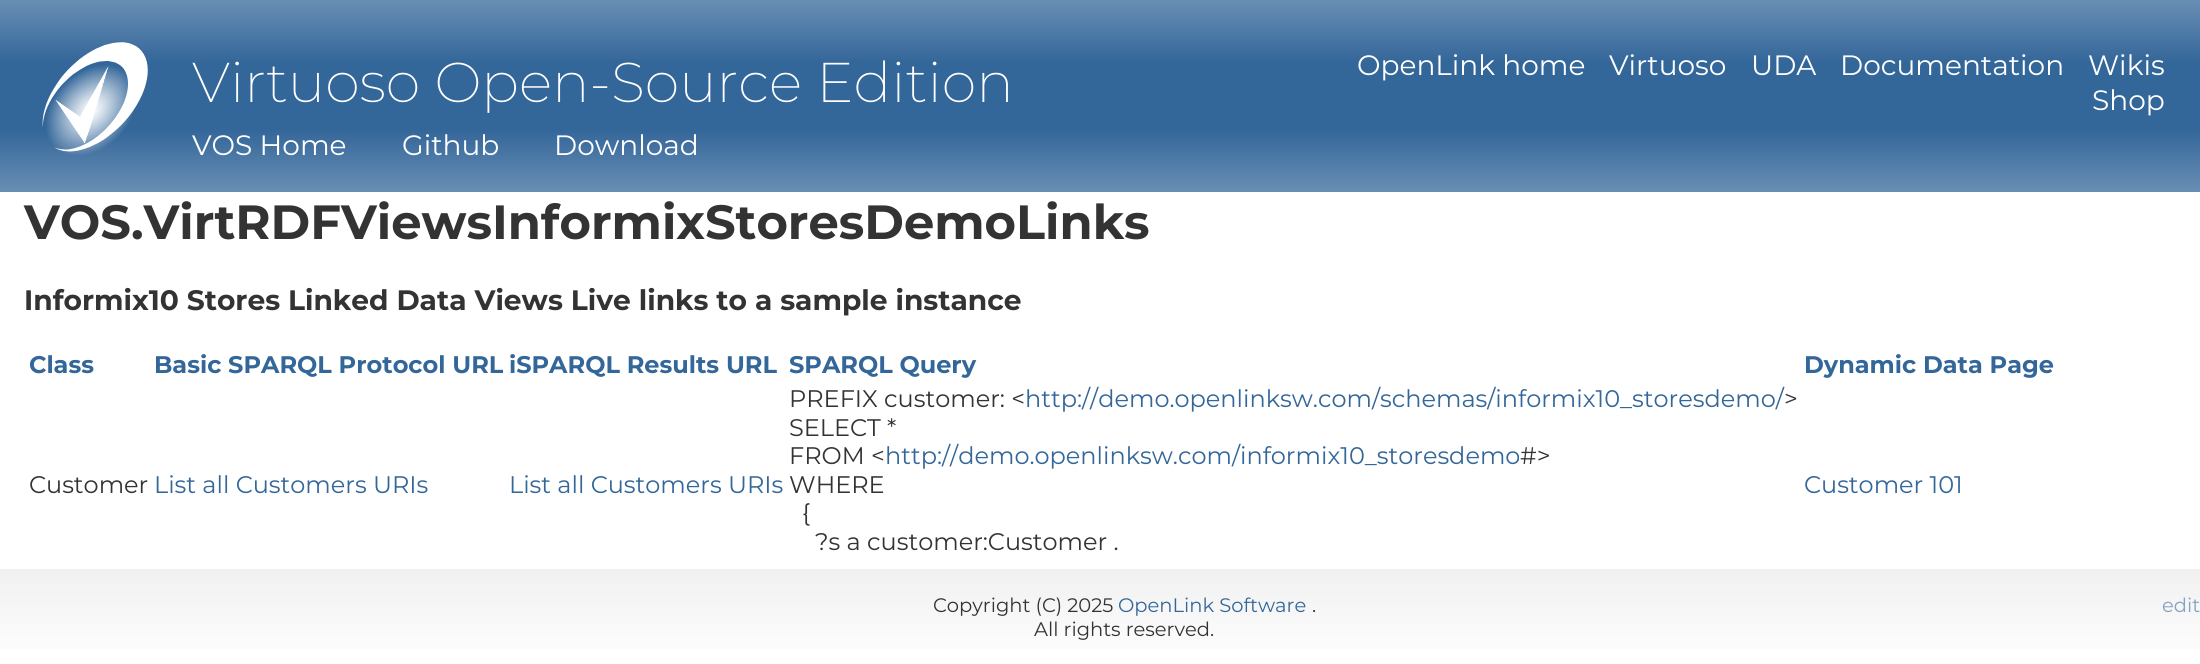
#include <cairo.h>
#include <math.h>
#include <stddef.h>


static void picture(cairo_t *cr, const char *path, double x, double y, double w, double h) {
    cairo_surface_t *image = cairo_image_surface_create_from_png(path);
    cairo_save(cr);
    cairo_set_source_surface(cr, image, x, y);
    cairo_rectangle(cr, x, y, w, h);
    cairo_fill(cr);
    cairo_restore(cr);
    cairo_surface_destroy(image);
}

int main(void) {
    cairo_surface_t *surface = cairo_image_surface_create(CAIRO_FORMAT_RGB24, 2200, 664);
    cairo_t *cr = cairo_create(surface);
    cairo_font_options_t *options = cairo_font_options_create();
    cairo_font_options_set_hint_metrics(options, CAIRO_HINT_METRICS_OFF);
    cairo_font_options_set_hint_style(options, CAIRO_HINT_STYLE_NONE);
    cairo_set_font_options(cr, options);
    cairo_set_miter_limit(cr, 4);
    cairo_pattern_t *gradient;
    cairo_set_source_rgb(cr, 1, 1, 1);
    cairo_paint(cr);
    gradient = cairo_pattern_create_linear(1124, 0, 1124, 192);
    cairo_pattern_add_color_stop_rgba(gradient, 0, 0.412, 0.557, 0.706, 1);
    cairo_pattern_add_color_stop_rgba(gradient, 0.33, 0.2, 0.4, 0.6, 1);
    cairo_pattern_add_color_stop_rgba(gradient, 0.67, 0.2, 0.4, 0.6, 1);
    cairo_pattern_add_color_stop_rgba(gradient, 1, 0.412, 0.557, 0.706, 1);
    cairo_set_source(cr, gradient);
    cairo_pattern_destroy(gradient);
    cairo_rectangle(cr, 0, 0, 2200, 192);
    cairo_fill(cr);
    picture(cr, "img1.png", 42, 42, 106, 113);
    cairo_select_font_face(cr, "Montserrat ExtraLight", CAIRO_FONT_SLANT_NORMAL, CAIRO_FONT_WEIGHT_NORMAL);
    cairo_set_font_size(cr, 56);
    cairo_set_source_rgb(cr, 1, 1, 1);
    cairo_move_to(cr, 192, 102);
    cairo_show_text(cr, "Virtuoso Open-Source Edition");
    cairo_select_font_face(cr, "Montserrat", CAIRO_FONT_SLANT_NORMAL, CAIRO_FONT_WEIGHT_NORMAL);
    cairo_set_font_size(cr, 28);
    cairo_move_to(cr, 192, 155);
    cairo_show_text(cr, "VOS Home");
    cairo_move_to(cr, 402, 155);
    cairo_show_text(cr, "Github");
    cairo_move_to(cr, 554, 155);
    cairo_show_text(cr, "Download");
    cairo_move_to(cr, 1357, 75);
    cairo_show_text(cr, "OpenLink home");
    cairo_move_to(cr, 1609, 75);
    cairo_show_text(cr, "Virtuoso");
    cairo_move_to(cr, 1751, 75);
    cairo_show_text(cr, "UDA");
    cairo_move_to(cr, 1840, 75);
    cairo_show_text(cr, "Documentation");
    cairo_move_to(cr, 2088, 75);
    cairo_show_text(cr, "Wikis");
    cairo_move_to(cr, 2092, 110);
    cairo_show_text(cr, "Shop");
    cairo_select_font_face(cr, "Montserrat", CAIRO_FONT_SLANT_NORMAL, CAIRO_FONT_WEIGHT_BOLD);
    cairo_set_font_size(cr, 48);
    cairo_set_source_rgb(cr, 0.2, 0.2, 0.2);
    cairo_move_to(cr, 24, 239);
    cairo_show_text(cr, "VOS.VirtRDFViewsInformixStoresDemoLinks");
    cairo_set_font_size(cr, 28.1);
    cairo_move_to(cr, 24, 310);
    cairo_show_text(cr, "Informix10 Stores Linked Data Views Live links to a sample instance");
    cairo_set_font_size(cr, 24);
    cairo_set_source_rgb(cr, 0.2, 0.4, 0.6);
    cairo_move_to(cr, 29, 373);
    cairo_show_text(cr, "Class");
    cairo_move_to(cr, 154, 373);
    cairo_show_text(cr, "Basic SPARQL Protocol URL");
    cairo_move_to(cr, 509, 373);
    cairo_show_text(cr, "iSPARQL Results URL");
    cairo_move_to(cr, 789, 373);
    cairo_show_text(cr, "SPARQL Query");
    cairo_move_to(cr, 1804, 373);
    cairo_show_text(cr, "Dynamic Data Page");
    cairo_select_font_face(cr, "Montserrat", CAIRO_FONT_SLANT_NORMAL, CAIRO_FONT_WEIGHT_NORMAL);
    cairo_set_source_rgb(cr, 0.2, 0.2, 0.2);
    cairo_move_to(cr, 29, 493);
    cairo_show_text(cr, "Customer");
    cairo_set_source_rgb(cr, 0.2, 0.4, 0.6);
    cairo_move_to(cr, 154, 493);
    cairo_show_text(cr, "List all Customers URIs");
    cairo_move_to(cr, 509, 493);
    cairo_show_text(cr, "List all Customers URIs");
    cairo_set_source_rgb(cr, 0.2, 0.2, 0.2);
    cairo_move_to(cr, 789, 407);
    cairo_show_text(cr, "PREFIX customer: <");
    cairo_set_source_rgb(cr, 0.2, 0.4, 0.6);
    cairo_move_to(cr, 1025, 407);
    cairo_show_text(cr, "http://demo.openlinksw.com/schemas/informix10_storesdemo/");
    cairo_set_source_rgb(cr, 0.2, 0.2, 0.2);
    cairo_move_to(cr, 1784, 407);
    cairo_show_text(cr, ">");
    cairo_move_to(cr, 789, 436);
    cairo_show_text(cr, "SELECT *");
    cairo_move_to(cr, 789, 464);
    cairo_show_text(cr, "FROM <");
    cairo_set_source_rgb(cr, 0.2, 0.4, 0.6);
    cairo_move_to(cr, 885, 464);
    cairo_show_text(cr, "http://demo.openlinksw.com/informix10_storesdemo");
    cairo_set_source_rgb(cr, 0.2, 0.2, 0.2);
    cairo_move_to(cr, 1520, 464);
    cairo_show_text(cr, "#>");
    cairo_move_to(cr, 789, 493);
    cairo_show_text(cr, "WHERE");
    cairo_move_to(cr, 802, 521);
    cairo_show_text(cr, "{");
    cairo_move_to(cr, 815, 550);
    cairo_show_text(cr, "?s a customer:Customer .");
    cairo_set_source_rgb(cr, 0.2, 0.4, 0.6);
    cairo_move_to(cr, 1804, 493);
    cairo_show_text(cr, "Customer 101");
    gradient = cairo_pattern_create_linear(1124, 568, 1124, 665);
    cairo_pattern_add_color_stop_rgba(gradient, 0, 0.941, 0.941, 0.941, 1);
    cairo_pattern_add_color_stop_rgba(gradient, 1, 1, 1, 1, 1);
    cairo_set_source(cr, gradient);
    cairo_pattern_destroy(gradient);
    cairo_rectangle(cr, 0, 569, 2200, 80);
    cairo_fill(cr);
    cairo_set_font_size(cr, 19.5);
    cairo_set_source_rgb(cr, 0.2, 0.2, 0.2);
    cairo_move_to(cr, 933, 612);
    cairo_show_text(cr, "Copyright (C) 2025");
    cairo_set_source_rgb(cr, 0.2, 0.4, 0.6);
    cairo_move_to(cr, 1118, 612);
    cairo_show_text(cr, "OpenLink Software");
    cairo_set_source_rgb(cr, 0.2, 0.2, 0.2);
    cairo_move_to(cr, 1312, 612);
    cairo_show_text(cr, ".");
    cairo_set_source_rgb(cr, 0.522, 0.635, 0.753);
    cairo_move_to(cr, 2162, 612);
    cairo_show_text(cr, "edit");
    cairo_set_source_rgb(cr, 0.2, 0.2, 0.2);
    cairo_move_to(cr, 1034, 636);
    cairo_show_text(cr, "All rights reserved.");
    cairo_surface_write_to_png(surface, "page.png");
    cairo_font_options_destroy(options);
    cairo_destroy(cr);
    cairo_surface_destroy(surface);
    return 0;
}
